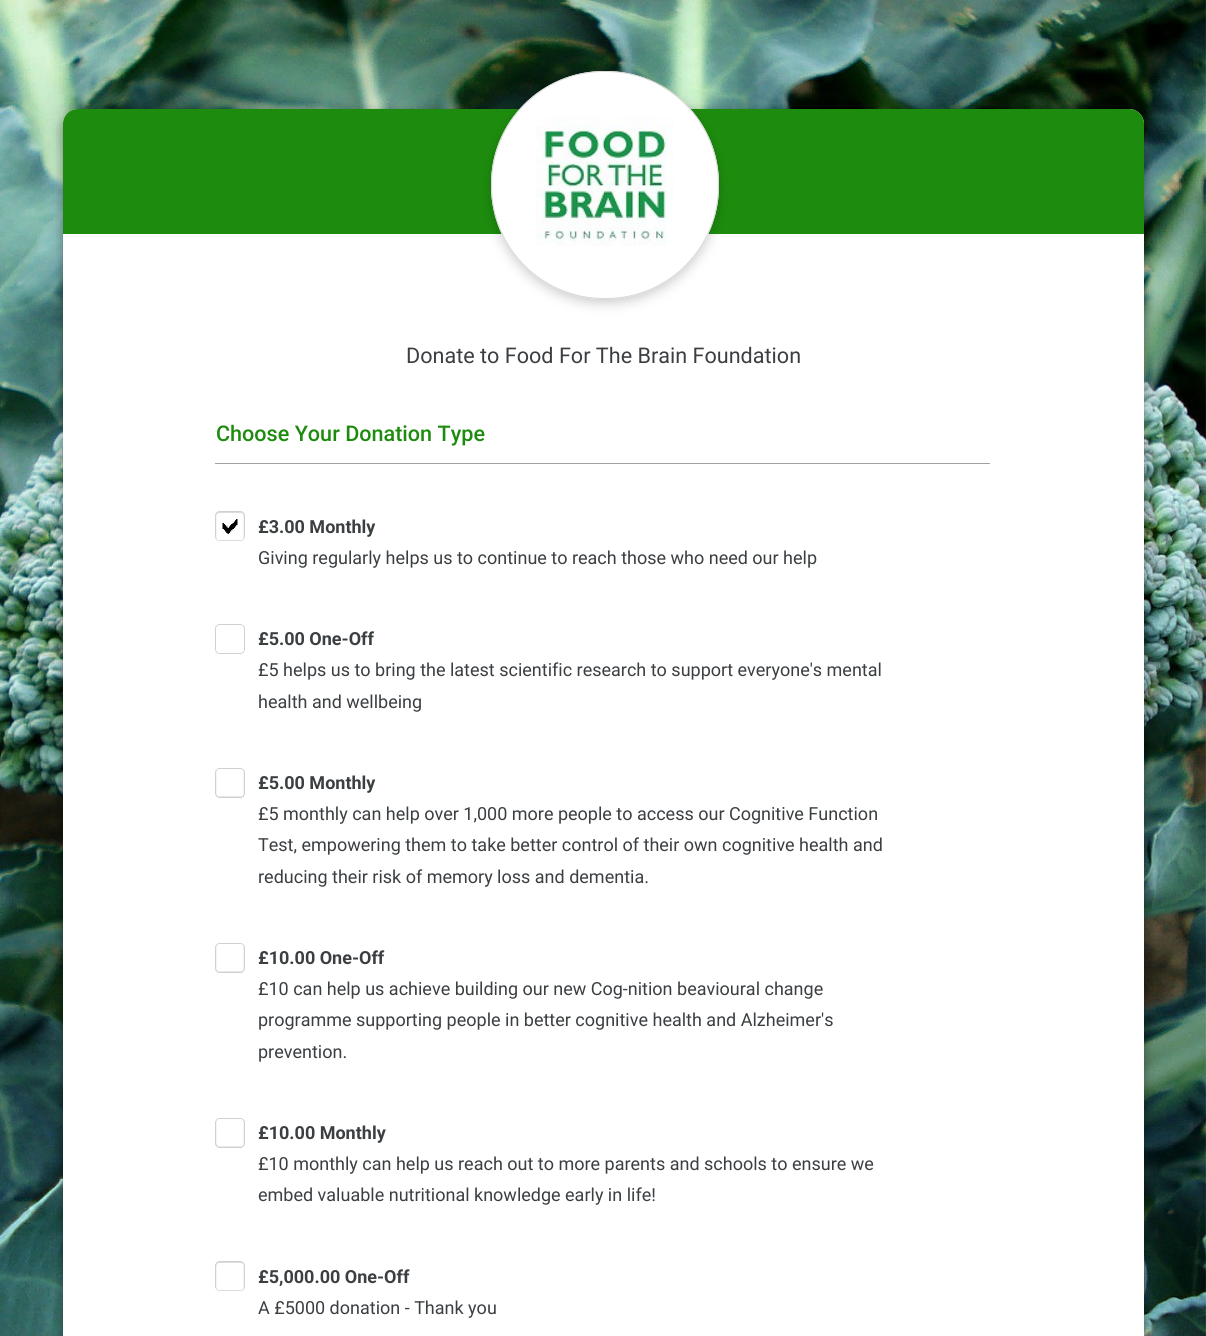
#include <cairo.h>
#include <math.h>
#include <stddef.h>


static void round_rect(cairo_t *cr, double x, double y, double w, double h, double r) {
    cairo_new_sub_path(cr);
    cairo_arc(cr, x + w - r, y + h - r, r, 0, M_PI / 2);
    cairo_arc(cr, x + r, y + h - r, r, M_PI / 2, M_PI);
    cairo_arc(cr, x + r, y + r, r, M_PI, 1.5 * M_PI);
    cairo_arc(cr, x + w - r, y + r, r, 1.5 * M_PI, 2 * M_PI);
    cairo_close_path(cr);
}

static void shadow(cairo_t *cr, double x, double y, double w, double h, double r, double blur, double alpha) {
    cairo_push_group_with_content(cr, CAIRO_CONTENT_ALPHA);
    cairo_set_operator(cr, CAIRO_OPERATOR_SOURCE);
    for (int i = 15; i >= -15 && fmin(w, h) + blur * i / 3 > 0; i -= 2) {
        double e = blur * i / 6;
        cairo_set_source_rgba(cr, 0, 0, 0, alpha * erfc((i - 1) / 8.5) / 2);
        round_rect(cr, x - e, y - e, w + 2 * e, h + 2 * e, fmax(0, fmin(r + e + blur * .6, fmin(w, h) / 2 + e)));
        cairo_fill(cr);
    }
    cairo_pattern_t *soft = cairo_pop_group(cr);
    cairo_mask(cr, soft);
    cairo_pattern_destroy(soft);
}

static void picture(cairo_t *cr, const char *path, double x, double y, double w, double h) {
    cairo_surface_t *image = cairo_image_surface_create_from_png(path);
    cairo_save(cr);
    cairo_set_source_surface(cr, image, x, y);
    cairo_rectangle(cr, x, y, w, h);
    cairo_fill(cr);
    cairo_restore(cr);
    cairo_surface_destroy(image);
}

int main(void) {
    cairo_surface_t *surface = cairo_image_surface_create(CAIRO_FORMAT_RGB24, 1206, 1336);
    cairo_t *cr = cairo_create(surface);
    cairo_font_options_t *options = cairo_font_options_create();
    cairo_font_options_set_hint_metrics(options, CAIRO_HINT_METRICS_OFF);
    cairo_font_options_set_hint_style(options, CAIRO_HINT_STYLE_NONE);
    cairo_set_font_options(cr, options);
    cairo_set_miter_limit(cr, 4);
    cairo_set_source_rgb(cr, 1, 1, 1);
    cairo_paint(cr);
    picture(cr, "img1.png", 0, 0, 1206, 1336);
    cairo_set_source_rgb(cr, 0, 0, 0);
    shadow(cr, 63, 113, 1081, 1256, 15, 6, 0.45);
    cairo_set_source_rgb(cr, 1, 1, 1);
    round_rect(cr, 63, 109, 1081, 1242, 15);
    cairo_fill(cr);
    cairo_set_source_rgb(cr, 0.114, 0.549, 0.055);
    cairo_new_path(cr);
    cairo_move_to(cr, 78, 109);
    cairo_line_to(cr, 1129, 109);
    cairo_curve_to(cr, 1137.5, 109, 1144, 115.5, 1144, 124);
    cairo_line_to(cr, 1144, 234);
    cairo_line_to(cr, 63, 234);
    cairo_line_to(cr, 63, 124);
    cairo_curve_to(cr, 63, 115.5, 69.5, 109, 78, 109);
    cairo_close_path(cr);
    cairo_fill(cr);
    cairo_set_source_rgb(cr, 0, 0, 0);
    shadow(cr, 491, 75, 228, 228, 113, 6, 0.2);
    cairo_set_source_rgb(cr, 1, 1, 1);
    round_rect(cr, 491, 71, 228, 228, 113);
    cairo_fill(cr);
    picture(cr, "img2.png", 536, 116, 138, 130);
    round_rect(cr, 491.5, 71.5, 227, 227, 112.5);
    cairo_set_source_rgb(cr, 0.843, 0.843, 0.843);
    cairo_set_line_width(cr, 1);
    cairo_stroke(cr);
    cairo_select_font_face(cr, "Roboto", CAIRO_FONT_SLANT_NORMAL, CAIRO_FONT_WEIGHT_NORMAL);
    cairo_set_font_size(cr, 21.6);
    cairo_set_source_rgb(cr, 0.231, 0.247, 0.259);
    cairo_move_to(cr, 406, 363);
    cairo_show_text(cr, "Donate to Food For The Brain Foundation");
    cairo_set_source_rgb(cr, 0.627, 0.639, 0.651);
    cairo_rectangle(cr, 215, 463, 775, 1);
    cairo_fill(cr);
    cairo_select_font_face(cr, "Roboto Medium", CAIRO_FONT_SLANT_NORMAL, CAIRO_FONT_WEIGHT_NORMAL);
    cairo_set_source_rgb(cr, 0.114, 0.549, 0.055);
    cairo_move_to(cr, 216, 441);
    cairo_show_text(cr, "Choose Your Donation Type");
    cairo_set_source_rgb(cr, 0.812, 0.82, 0.824);
    round_rect(cr, 215.5, 511.5, 29, 29, 4.5);
    cairo_fill_preserve(cr);
    cairo_stroke(cr);
    picture(cr, "img3.png", 216, 512, 28, 29);
    cairo_select_font_face(cr, "Roboto", CAIRO_FONT_SLANT_NORMAL, CAIRO_FONT_WEIGHT_BOLD);
    cairo_set_font_size(cr, 18);
    cairo_set_source_rgb(cr, 0.231, 0.247, 0.259);
    cairo_move_to(cr, 258, 533);
    cairo_show_text(cr, "£3.00 Monthly");
    cairo_select_font_face(cr, "Roboto", CAIRO_FONT_SLANT_NORMAL, CAIRO_FONT_WEIGHT_NORMAL);
    cairo_move_to(cr, 258, 564);
    cairo_show_text(cr, "Giving regularly helps us to continue to reach those who need our help");
    round_rect(cr, 215.5, 624.5, 29, 29, 4.5);
    cairo_set_source_rgb(cr, 0.812, 0.82, 0.824);
    cairo_stroke(cr);
    picture(cr, "img4.png", 216, 625, 28, 28);
    cairo_select_font_face(cr, "Roboto", CAIRO_FONT_SLANT_NORMAL, CAIRO_FONT_WEIGHT_BOLD);
    cairo_set_source_rgb(cr, 0.231, 0.247, 0.259);
    cairo_move_to(cr, 258, 645);
    cairo_show_text(cr, "£5.00 One-Off");
    cairo_select_font_face(cr, "Roboto", CAIRO_FONT_SLANT_NORMAL, CAIRO_FONT_WEIGHT_NORMAL);
    cairo_move_to(cr, 258, 676);
    cairo_show_text(cr, "£5 helps us to bring the latest scientific research to support everyone's mental");
    cairo_move_to(cr, 258, 708);
    cairo_show_text(cr, "health and wellbeing");
    cairo_set_source_rgb(cr, 0.812, 0.82, 0.824);
    round_rect(cr, 215.5, 768.5, 29, 29, 4.5);
    cairo_fill_preserve(cr);
    cairo_stroke(cr);
    picture(cr, "img5.png", 216, 769, 28, 28);
    cairo_select_font_face(cr, "Roboto", CAIRO_FONT_SLANT_NORMAL, CAIRO_FONT_WEIGHT_BOLD);
    cairo_set_source_rgb(cr, 0.231, 0.247, 0.259);
    cairo_move_to(cr, 258, 789);
    cairo_show_text(cr, "£5.00 Monthly");
    cairo_select_font_face(cr, "Roboto", CAIRO_FONT_SLANT_NORMAL, CAIRO_FONT_WEIGHT_NORMAL);
    cairo_move_to(cr, 258, 820);
    cairo_show_text(cr, "£5 monthly can help over 1,000 more people to access our Cognitive Function");
    cairo_move_to(cr, 258, 851);
    cairo_show_text(cr, "Test, empowering them to take better control of their own cognitive health and");
    cairo_move_to(cr, 258, 883);
    cairo_show_text(cr, "reducing their risk of memory loss and dementia.");
    cairo_set_source_rgb(cr, 0.812, 0.82, 0.824);
    round_rect(cr, 215.5, 943.5, 29, 29, 4.5);
    cairo_fill_preserve(cr);
    cairo_stroke(cr);
    picture(cr, "img5.png", 216, 944, 28, 28);
    cairo_select_font_face(cr, "Roboto", CAIRO_FONT_SLANT_NORMAL, CAIRO_FONT_WEIGHT_BOLD);
    cairo_set_source_rgb(cr, 0.231, 0.247, 0.259);
    cairo_move_to(cr, 258, 964);
    cairo_show_text(cr, "£10.00 One-Off");
    cairo_select_font_face(cr, "Roboto", CAIRO_FONT_SLANT_NORMAL, CAIRO_FONT_WEIGHT_NORMAL);
    cairo_move_to(cr, 258, 995);
    cairo_show_text(cr, "£10 can help us achieve building our new Cog-nition beavioural change");
    cairo_move_to(cr, 258, 1026);
    cairo_show_text(cr, "programme supporting people in better cognitive health and Alzheimer's");
    cairo_move_to(cr, 258, 1058);
    cairo_show_text(cr, "prevention.");
    cairo_set_source_rgb(cr, 0.812, 0.82, 0.824);
    round_rect(cr, 215.5, 1118.5, 29, 29, 4.5);
    cairo_fill_preserve(cr);
    cairo_stroke(cr);
    picture(cr, "img5.png", 216, 1119, 28, 28);
    cairo_select_font_face(cr, "Roboto", CAIRO_FONT_SLANT_NORMAL, CAIRO_FONT_WEIGHT_BOLD);
    cairo_set_source_rgb(cr, 0.231, 0.247, 0.259);
    cairo_move_to(cr, 258, 1139);
    cairo_show_text(cr, "£10.00 Monthly");
    cairo_select_font_face(cr, "Roboto", CAIRO_FONT_SLANT_NORMAL, CAIRO_FONT_WEIGHT_NORMAL);
    cairo_move_to(cr, 258, 1170);
    cairo_show_text(cr, "£10 monthly can help us reach out to more parents and schools to ensure we");
    cairo_move_to(cr, 258, 1201);
    cairo_show_text(cr, "embed valuable nutritional knowledge early in life!");
    cairo_set_source_rgb(cr, 0.812, 0.82, 0.824);
    round_rect(cr, 215.5, 1261.5, 29, 29, 4.5);
    cairo_fill_preserve(cr);
    cairo_stroke(cr);
    picture(cr, "img6.png", 216, 1262, 28, 29);
    cairo_select_font_face(cr, "Roboto", CAIRO_FONT_SLANT_NORMAL, CAIRO_FONT_WEIGHT_BOLD);
    cairo_set_source_rgb(cr, 0.231, 0.247, 0.259);
    cairo_move_to(cr, 258, 1283);
    cairo_show_text(cr, "£5,000.00 One-Off");
    cairo_select_font_face(cr, "Roboto", CAIRO_FONT_SLANT_NORMAL, CAIRO_FONT_WEIGHT_NORMAL);
    cairo_move_to(cr, 258, 1314);
    cairo_show_text(cr, "A £5000 donation - Thank you");
    cairo_surface_write_to_png(surface, "page.png");
    cairo_font_options_destroy(options);
    cairo_destroy(cr);
    cairo_surface_destroy(surface);
    return 0;
}
